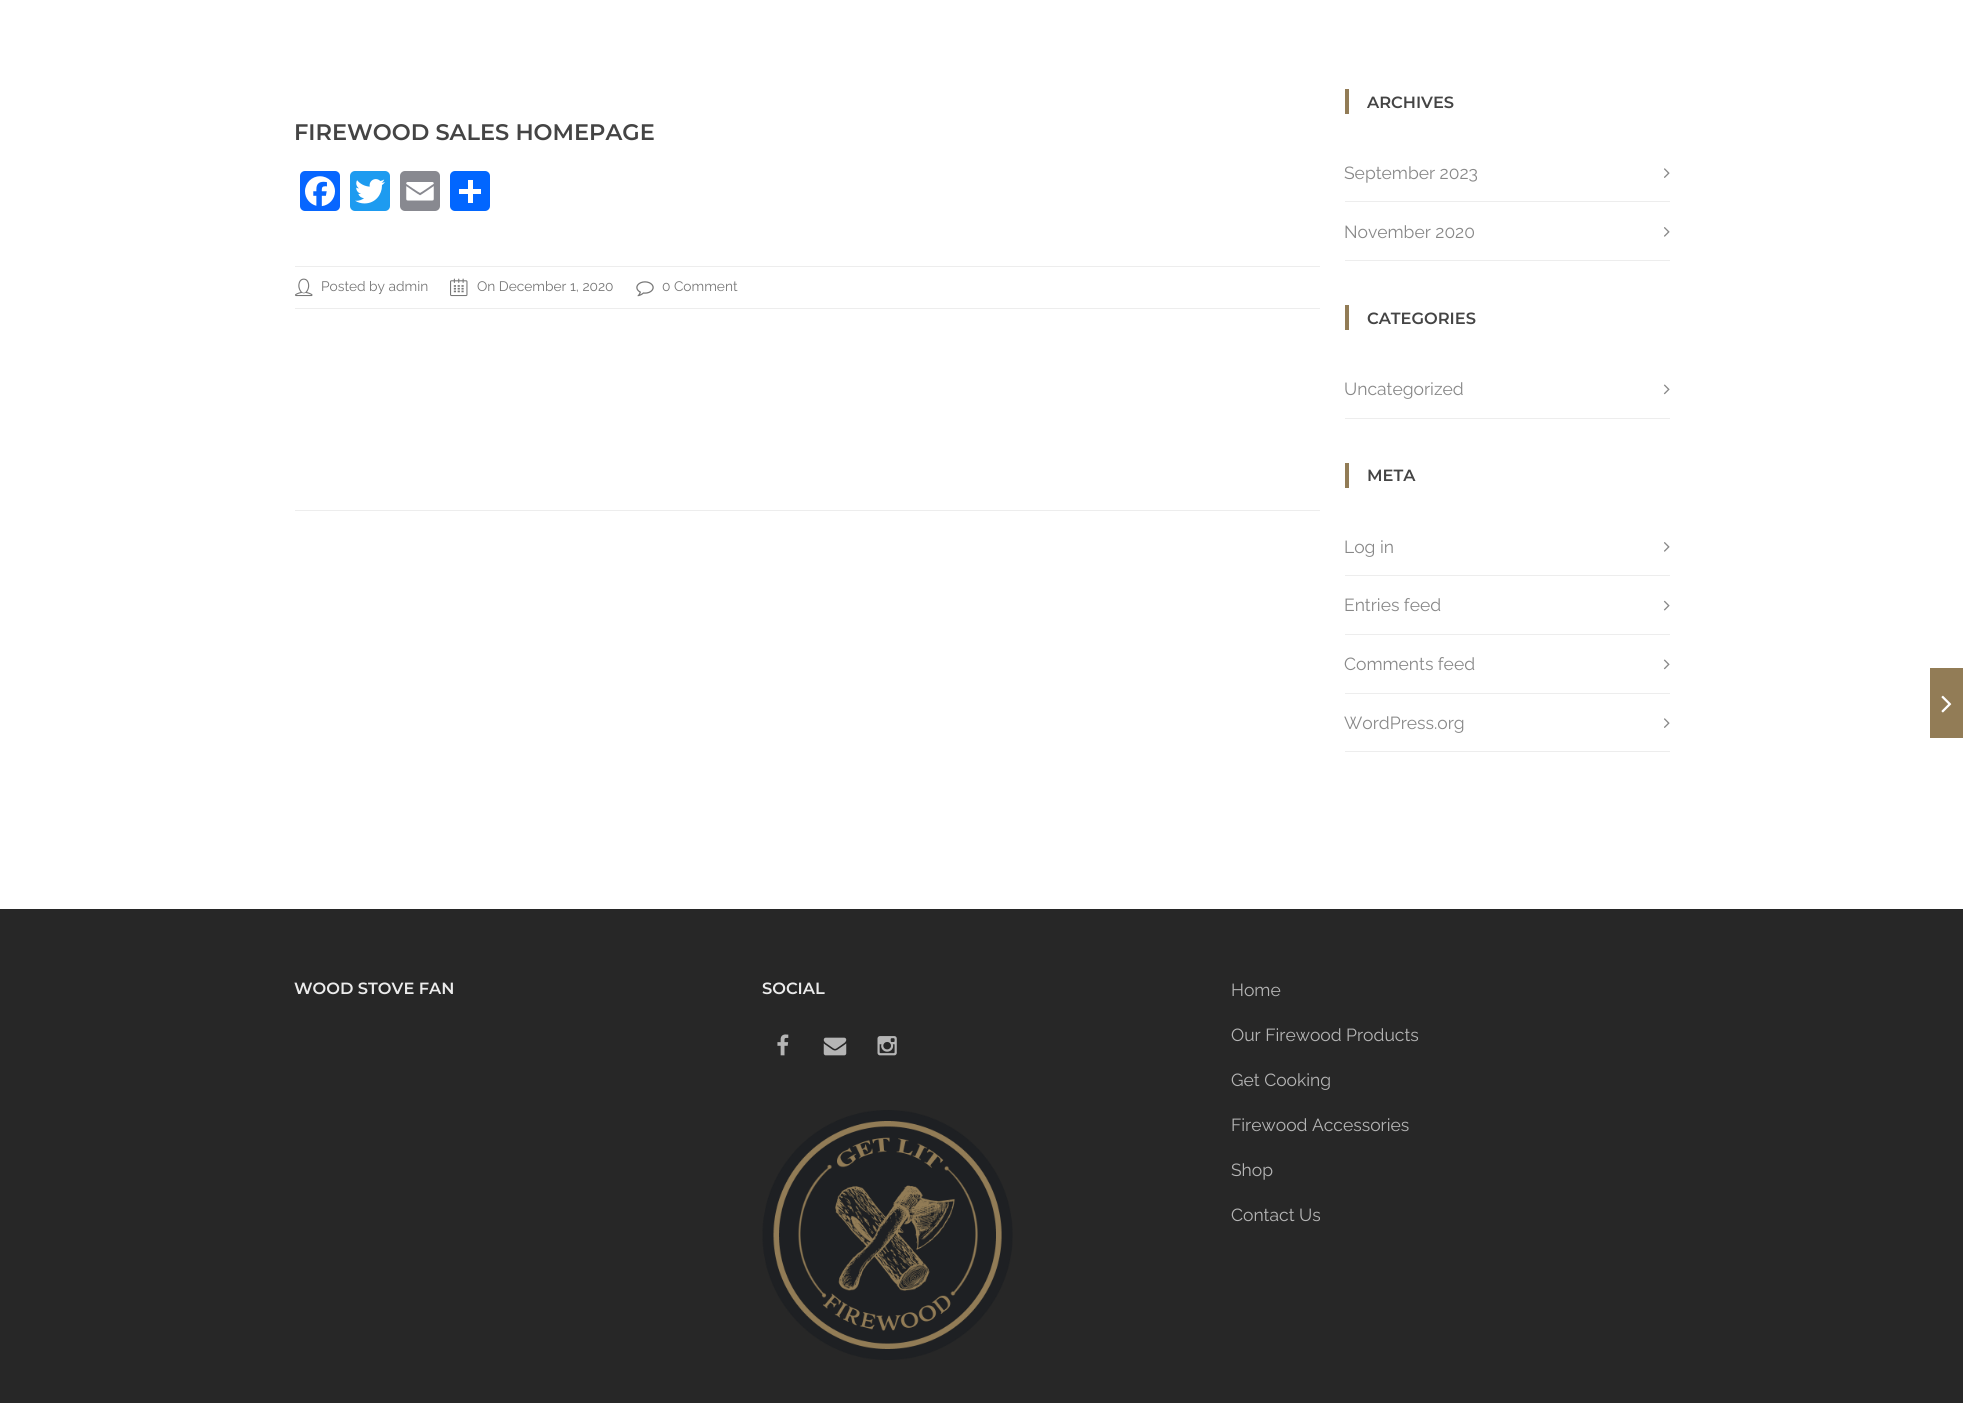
#include <cairo.h>
#include <math.h>
#include <stddef.h>


static void round_rect(cairo_t *cr, double x, double y, double w, double h, double r) {
    cairo_new_sub_path(cr);
    cairo_arc(cr, x + w - r, y + h - r, r, 0, M_PI / 2);
    cairo_arc(cr, x + r, y + h - r, r, M_PI / 2, M_PI);
    cairo_arc(cr, x + r, y + r, r, M_PI, 1.5 * M_PI);
    cairo_arc(cr, x + w - r, y + r, r, 1.5 * M_PI, 2 * M_PI);
    cairo_close_path(cr);
}

static void picture(cairo_t *cr, const char *path, double x, double y, double w, double h) {
    cairo_surface_t *image = cairo_image_surface_create_from_png(path);
    cairo_save(cr);
    cairo_set_source_surface(cr, image, x, y);
    cairo_rectangle(cr, x, y, w, h);
    cairo_fill(cr);
    cairo_restore(cr);
    cairo_surface_destroy(image);
}

int main(void) {
    cairo_surface_t *surface = cairo_image_surface_create(CAIRO_FORMAT_RGB24, 1963, 1403);
    cairo_t *cr = cairo_create(surface);
    cairo_font_options_t *options = cairo_font_options_create();
    cairo_font_options_set_hint_metrics(options, CAIRO_HINT_METRICS_OFF);
    cairo_font_options_set_hint_style(options, CAIRO_HINT_STYLE_NONE);
    cairo_set_font_options(cr, options);
    cairo_set_miter_limit(cr, 4);
    cairo_set_source_rgb(cr, 1, 1, 1);
    cairo_paint(cr);
    cairo_select_font_face(cr, "Montserrat SemiBold", CAIRO_FONT_SLANT_NORMAL, CAIRO_FONT_WEIGHT_NORMAL);
    cairo_set_font_size(cr, 22.5);
    cairo_set_source_rgb(cr, 0.267, 0.267, 0.267);
    cairo_move_to(cr, 294, 140);
    cairo_show_text(cr, "FIREWOOD SALES HOMEPAGE");
    cairo_set_source_rgb(cr, 0.031, 0.4, 1);
    round_rect(cr, 300, 171, 40, 40, 5);
    cairo_fill(cr);
    picture(cr, "img1.png", 305, 176, 30, 31);
    cairo_set_source_rgb(cr, 0.114, 0.608, 0.941);
    round_rect(cr, 350, 171, 40, 40, 5);
    cairo_fill(cr);
    picture(cr, "img2.png", 355, 179, 30, 25);
    cairo_set_source_rgb(cr, 0.533, 0.537, 0.565);
    round_rect(cr, 400, 171, 40, 40, 5);
    cairo_fill(cr);
    picture(cr, "img3.png", 406, 182, 28, 19);
    cairo_set_source_rgb(cr, 0.004, 0.4, 1);
    round_rect(cr, 450, 171, 40, 40, 5);
    cairo_fill(cr);
    cairo_set_source_rgb(cr, 1, 1, 1);
    cairo_rectangle(cr, 468, 180, 5, 23);
    cairo_fill(cr);
    cairo_rectangle(cr, 459, 189, 22, 5);
    cairo_fill(cr);
    cairo_set_source_rgb(cr, 0.929, 0.929, 0.929);
    cairo_rectangle(cr, 295, 266, 1025, 1);
    cairo_fill(cr);
    cairo_rectangle(cr, 295, 308, 1025, 1);
    cairo_fill(cr);
    picture(cr, "img4.png", 295, 278, 18, 19);
    cairo_select_font_face(cr, "Raleway", CAIRO_FONT_SLANT_NORMAL, CAIRO_FONT_WEIGHT_NORMAL);
    cairo_set_font_size(cr, 13.75);
    cairo_set_source_rgb(cr, 0.467, 0.467, 0.467);
    cairo_move_to(cr, 321, 291);
    cairo_show_text(cr, "Posted by admin");
    picture(cr, "img5.png", 450, 278, 18, 19);
    cairo_move_to(cr, 477, 291);
    cairo_show_text(cr, "On December 1, 2020");
    picture(cr, "img6.png", 636, 281, 18, 16);
    cairo_move_to(cr, 662, 291);
    cairo_show_text(cr, "0 Comment");
    cairo_set_source_rgb(cr, 0.929, 0.929, 0.929);
    cairo_rectangle(cr, 295, 510, 1025, 1);
    cairo_fill(cr);
    cairo_set_source_rgb(cr, 0.573, 0.486, 0.337);
    cairo_rectangle(cr, 1345, 89, 4, 25);
    cairo_fill(cr);
    cairo_select_font_face(cr, "Montserrat SemiBold", CAIRO_FONT_SLANT_NORMAL, CAIRO_FONT_WEIGHT_NORMAL);
    cairo_set_font_size(cr, 16.25);
    cairo_set_source_rgb(cr, 0.267, 0.267, 0.267);
    cairo_move_to(cr, 1367, 108);
    cairo_show_text(cr, "ARCHIVES");
    cairo_set_source_rgb(cr, 0.929, 0.929, 0.929);
    cairo_rectangle(cr, 1345, 201, 325, 1);
    cairo_fill(cr);
    cairo_select_font_face(cr, "Raleway", CAIRO_FONT_SLANT_NORMAL, CAIRO_FONT_WEIGHT_NORMAL);
    cairo_set_font_size(cr, 17.5);
    cairo_set_source_rgb(cr, 0.533, 0.533, 0.533);
    cairo_move_to(cr, 1344, 179);
    cairo_show_text(cr, "September 2023");
    picture(cr, "img7.png", 1664, 168, 6, 10);
    cairo_set_source_rgb(cr, 0.929, 0.929, 0.929);
    cairo_rectangle(cr, 1345, 260, 325, 1);
    cairo_fill(cr);
    cairo_set_source_rgb(cr, 0.533, 0.533, 0.533);
    cairo_move_to(cr, 1344, 238);
    cairo_show_text(cr, "November 2020");
    picture(cr, "img8.png", 1664, 227, 6, 10);
    cairo_set_source_rgb(cr, 0.573, 0.486, 0.337);
    cairo_rectangle(cr, 1345, 305, 4, 25);
    cairo_fill(cr);
    cairo_select_font_face(cr, "Montserrat SemiBold", CAIRO_FONT_SLANT_NORMAL, CAIRO_FONT_WEIGHT_NORMAL);
    cairo_set_font_size(cr, 16.25);
    cairo_set_source_rgb(cr, 0.267, 0.267, 0.267);
    cairo_move_to(cr, 1367, 324);
    cairo_show_text(cr, "CATEGORIES");
    cairo_set_source_rgb(cr, 0.929, 0.929, 0.929);
    cairo_rectangle(cr, 1345, 418, 325, 1);
    cairo_fill(cr);
    cairo_select_font_face(cr, "Raleway", CAIRO_FONT_SLANT_NORMAL, CAIRO_FONT_WEIGHT_NORMAL);
    cairo_set_font_size(cr, 17.5);
    cairo_set_source_rgb(cr, 0.533, 0.533, 0.533);
    cairo_move_to(cr, 1344, 395);
    cairo_show_text(cr, "Uncategorized");
    picture(cr, "img9.png", 1663, 384, 7, 11);
    cairo_set_source_rgb(cr, 0.573, 0.486, 0.337);
    cairo_rectangle(cr, 1345, 463, 4, 25);
    cairo_fill(cr);
    cairo_select_font_face(cr, "Montserrat SemiBold", CAIRO_FONT_SLANT_NORMAL, CAIRO_FONT_WEIGHT_NORMAL);
    cairo_set_font_size(cr, 16.25);
    cairo_set_source_rgb(cr, 0.267, 0.267, 0.267);
    cairo_move_to(cr, 1367, 481);
    cairo_show_text(cr, "META");
    cairo_set_source_rgb(cr, 0.929, 0.929, 0.929);
    cairo_rectangle(cr, 1345, 575, 325, 1);
    cairo_fill(cr);
    cairo_select_font_face(cr, "Raleway", CAIRO_FONT_SLANT_NORMAL, CAIRO_FONT_WEIGHT_NORMAL);
    cairo_set_font_size(cr, 17.5);
    cairo_set_source_rgb(cr, 0.533, 0.533, 0.533);
    cairo_move_to(cr, 1344, 553);
    cairo_show_text(cr, "Log in");
    picture(cr, "img8.png", 1664, 542, 6, 10);
    cairo_set_source_rgb(cr, 0.929, 0.929, 0.929);
    cairo_rectangle(cr, 1345, 634, 325, 1);
    cairo_fill(cr);
    cairo_set_source_rgb(cr, 0.533, 0.533, 0.533);
    cairo_move_to(cr, 1344, 611);
    cairo_show_text(cr, "Entries feed");
    picture(cr, "img10.png", 1663, 600, 7, 11);
    cairo_set_source_rgb(cr, 0.929, 0.929, 0.929);
    cairo_rectangle(cr, 1345, 693, 325, 1);
    cairo_fill(cr);
    cairo_set_source_rgb(cr, 0.533, 0.533, 0.533);
    cairo_move_to(cr, 1344, 670);
    cairo_show_text(cr, "Comments feed");
    picture(cr, "img9.png", 1663, 659, 7, 11);
    cairo_set_source_rgb(cr, 0.929, 0.929, 0.929);
    cairo_rectangle(cr, 1345, 751, 325, 1);
    cairo_fill(cr);
    cairo_set_source_rgb(cr, 0.533, 0.533, 0.533);
    cairo_move_to(cr, 1344, 729);
    cairo_show_text(cr, "WordPress.org");
    picture(cr, "img7.png", 1664, 718, 6, 10);
    cairo_set_source_rgb(cr, 0.573, 0.486, 0.337);
    cairo_rectangle(cr, 1930, 668, 33, 70);
    cairo_fill(cr);
    picture(cr, "img11.png", 1941, 695, 11, 18);
    cairo_set_source_rgb(cr, 0.153, 0.153, 0.153);
    cairo_rectangle(cr, 0, 909, 1963, 494);
    cairo_fill(cr);
    cairo_select_font_face(cr, "Montserrat SemiBold", CAIRO_FONT_SLANT_NORMAL, CAIRO_FONT_WEIGHT_NORMAL);
    cairo_set_font_size(cr, 16.25);
    cairo_set_source_rgb(cr, 0.918, 0.918, 0.918);
    cairo_move_to(cr, 294, 994);
    cairo_show_text(cr, "WOOD STOVE FAN");
    cairo_move_to(cr, 762, 994);
    cairo_show_text(cr, "SOCIAL");
    picture(cr, "img12.png", 777, 1034, 12, 22);
    picture(cr, "img13.png", 823, 1037, 24, 19);
    picture(cr, "img14.png", 877, 1036, 20, 20);
    picture(cr, "img15.png", 762, 1110, 251, 250);
    cairo_select_font_face(cr, "Raleway", CAIRO_FONT_SLANT_NORMAL, CAIRO_FONT_WEIGHT_NORMAL);
    cairo_set_font_size(cr, 17.5);
    cairo_set_source_rgb(cr, 0.71, 0.71, 0.71);
    cairo_move_to(cr, 1231, 996);
    cairo_show_text(cr, "Home");
    cairo_move_to(cr, 1231, 1041);
    cairo_show_text(cr, "Our Firewood Products");
    cairo_move_to(cr, 1231, 1086);
    cairo_show_text(cr, "Get Cooking");
    cairo_move_to(cr, 1231, 1131);
    cairo_show_text(cr, "Firewood Accessories");
    cairo_move_to(cr, 1231, 1176);
    cairo_show_text(cr, "Shop");
    cairo_move_to(cr, 1231, 1221);
    cairo_show_text(cr, "Contact Us");
    cairo_surface_write_to_png(surface, "page.png");
    cairo_font_options_destroy(options);
    cairo_destroy(cr);
    cairo_surface_destroy(surface);
    return 0;
}
